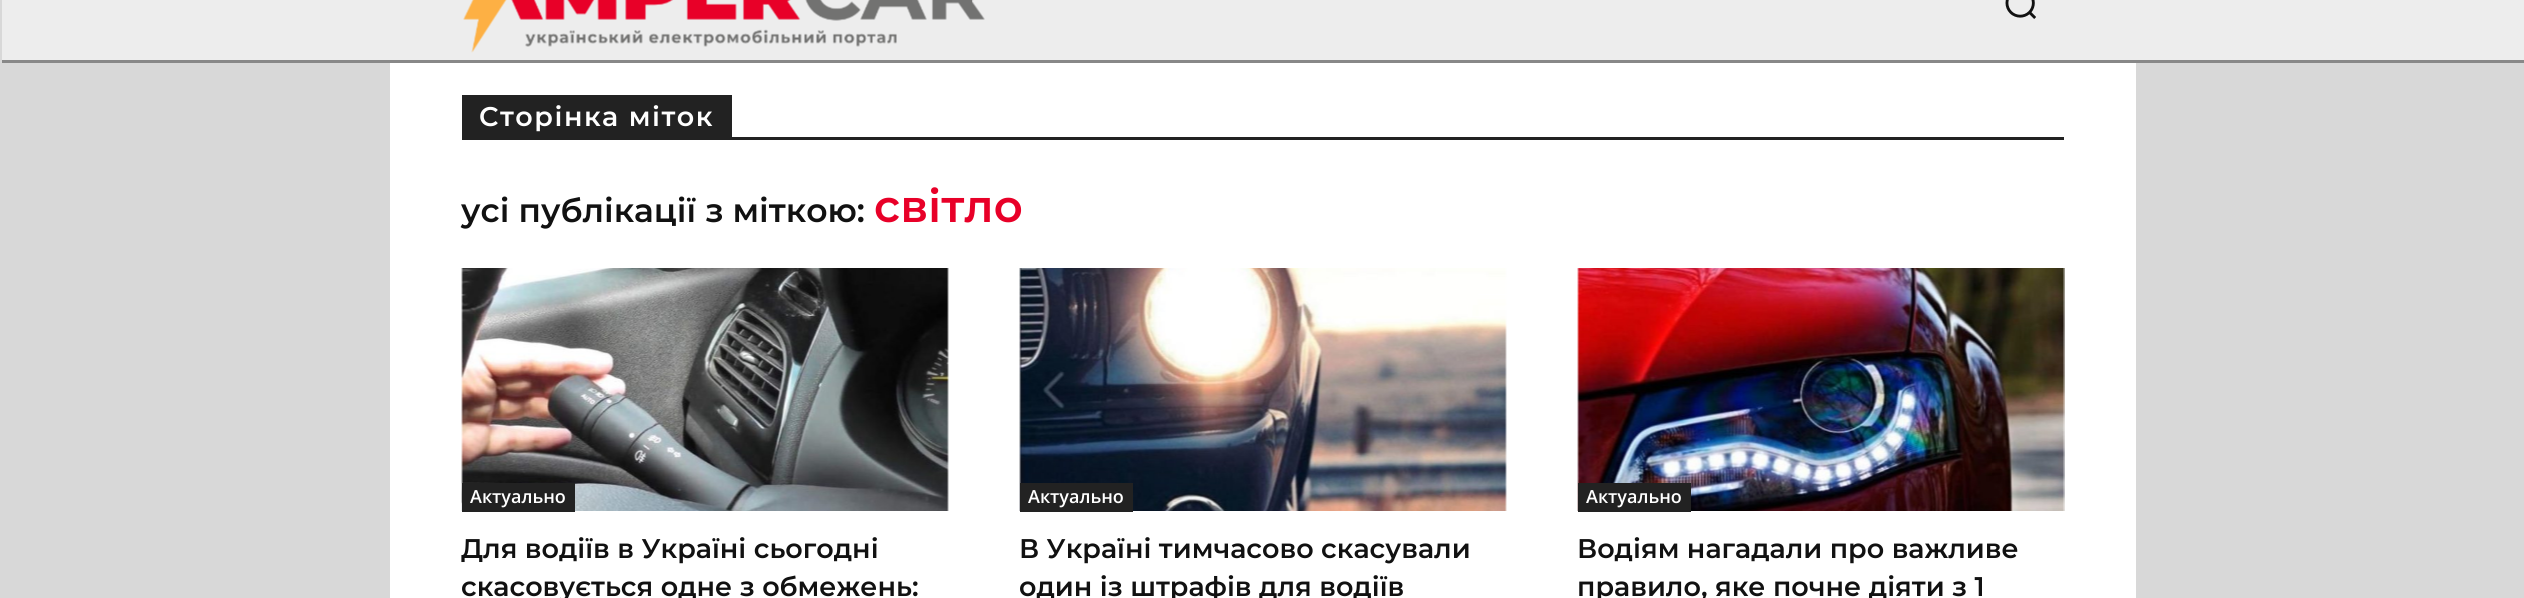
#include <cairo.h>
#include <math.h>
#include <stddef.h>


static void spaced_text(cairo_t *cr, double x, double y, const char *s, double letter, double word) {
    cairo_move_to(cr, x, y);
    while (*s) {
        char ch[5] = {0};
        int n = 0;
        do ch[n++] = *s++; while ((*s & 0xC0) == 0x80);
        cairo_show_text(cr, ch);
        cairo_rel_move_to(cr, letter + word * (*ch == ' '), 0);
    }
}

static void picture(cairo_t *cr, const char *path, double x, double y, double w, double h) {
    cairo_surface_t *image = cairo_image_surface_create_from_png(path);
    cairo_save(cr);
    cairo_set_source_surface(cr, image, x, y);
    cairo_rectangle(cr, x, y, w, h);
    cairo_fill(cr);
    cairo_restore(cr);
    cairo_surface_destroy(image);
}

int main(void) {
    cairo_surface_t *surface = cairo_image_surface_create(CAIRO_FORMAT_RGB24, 2524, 598);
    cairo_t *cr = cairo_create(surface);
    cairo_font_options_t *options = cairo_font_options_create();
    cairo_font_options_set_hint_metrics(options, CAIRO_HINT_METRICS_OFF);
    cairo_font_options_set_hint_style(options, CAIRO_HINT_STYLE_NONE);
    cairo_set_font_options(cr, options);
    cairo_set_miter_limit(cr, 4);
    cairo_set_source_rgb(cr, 0.847, 0.847, 0.847);
    cairo_paint(cr);
    cairo_set_source_rgb(cr, 0.929, 0.929, 0.929);
    cairo_rectangle(cr, 2, 0, 2522, 60);
    cairo_fill(cr);
    cairo_set_source_rgb(cr, 0.533, 0.533, 0.533);
    cairo_rectangle(cr, 2, 60, 2522, 3);
    cairo_fill(cr);
    picture(cr, "img1.png", 463, 0, 522, 53);
    picture(cr, "img2.png", 2005, 0, 31, 19);
    cairo_set_source_rgb(cr, 1, 1, 1);
    cairo_rectangle(cr, 390, 63, 1746, 535);
    cairo_fill(cr);
    cairo_set_source_rgb(cr, 0.133, 0.133, 0.133);
    cairo_rectangle(cr, 462, 137, 1602, 3);
    cairo_fill(cr);
    cairo_rectangle(cr, 462, 95, 270, 42);
    cairo_fill(cr);
    cairo_select_font_face(cr, "Montserrat SemiBold", CAIRO_FONT_SLANT_NORMAL, CAIRO_FONT_WEIGHT_NORMAL);
    cairo_set_font_size(cr, 27);
    cairo_set_source_rgb(cr, 1, 1, 1);
    spaced_text(cr, 479, 126, "Сторінка міток", 1.5, 0);
    cairo_set_font_size(cr, 33);
    cairo_set_source_rgb(cr, 0.067, 0.067, 0.067);
    cairo_move_to(cr, 461, 222);
    cairo_show_text(cr, "усі публікації з міткою:");
    cairo_set_font_size(cr, 45);
    cairo_set_source_rgb(cr, 0.91, 0, 0.157);
    cairo_move_to(cr, 874, 222);
    cairo_show_text(cr, "світло");
    picture(cr, "img3.png", 461, 268, 488, 243);
    cairo_set_source_rgb(cr, 0.133, 0.133, 0.133);
    cairo_rectangle(cr, 462, 483, 113, 29);
    cairo_fill(cr);
    cairo_select_font_face(cr, "Open Sans SemiBold", CAIRO_FONT_SLANT_NORMAL, CAIRO_FONT_WEIGHT_NORMAL);
    cairo_set_font_size(cr, 18);
    cairo_set_source_rgb(cr, 1, 1, 1);
    cairo_move_to(cr, 470, 503);
    cairo_show_text(cr, "Актуально");
    cairo_select_font_face(cr, "Montserrat SemiBold", CAIRO_FONT_SLANT_NORMAL, CAIRO_FONT_WEIGHT_NORMAL);
    cairo_set_font_size(cr, 27);
    cairo_set_source_rgb(cr, 0.067, 0.067, 0.067);
    cairo_move_to(cr, 461, 558);
    cairo_show_text(cr, "Для водіїв в Україні сьогодні");
    cairo_move_to(cr, 461, 596);
    cairo_show_text(cr, "скасовується одне з обмежень:");
    picture(cr, "img4.png", 1019, 268, 488, 243);
    cairo_set_source_rgb(cr, 0.133, 0.133, 0.133);
    cairo_rectangle(cr, 1020, 483, 113, 29);
    cairo_fill(cr);
    cairo_select_font_face(cr, "Open Sans SemiBold", CAIRO_FONT_SLANT_NORMAL, CAIRO_FONT_WEIGHT_NORMAL);
    cairo_set_font_size(cr, 18);
    cairo_set_source_rgb(cr, 1, 1, 1);
    cairo_move_to(cr, 1028, 503);
    cairo_show_text(cr, "Актуально");
    cairo_select_font_face(cr, "Montserrat SemiBold", CAIRO_FONT_SLANT_NORMAL, CAIRO_FONT_WEIGHT_NORMAL);
    cairo_set_font_size(cr, 27);
    cairo_set_source_rgb(cr, 0.067, 0.067, 0.067);
    cairo_move_to(cr, 1019, 558);
    cairo_show_text(cr, "В Україні тимчасово скасували");
    cairo_move_to(cr, 1019, 596);
    cairo_show_text(cr, "один із штрафів для водіїв");
    picture(cr, "img5.png", 1577, 268, 488, 243);
    cairo_set_source_rgb(cr, 0.133, 0.133, 0.133);
    cairo_rectangle(cr, 1578, 483, 113, 29);
    cairo_fill(cr);
    cairo_select_font_face(cr, "Open Sans SemiBold", CAIRO_FONT_SLANT_NORMAL, CAIRO_FONT_WEIGHT_NORMAL);
    cairo_set_font_size(cr, 18);
    cairo_set_source_rgb(cr, 1, 1, 1);
    cairo_move_to(cr, 1586, 503);
    cairo_show_text(cr, "Актуально");
    cairo_select_font_face(cr, "Montserrat SemiBold", CAIRO_FONT_SLANT_NORMAL, CAIRO_FONT_WEIGHT_NORMAL);
    cairo_set_font_size(cr, 27);
    cairo_set_source_rgb(cr, 0.067, 0.067, 0.067);
    cairo_move_to(cr, 1577, 558);
    cairo_show_text(cr, "Водіям нагадали про важливе");
    cairo_move_to(cr, 1577, 596);
    cairo_show_text(cr, "правило, яке почне діяти з 1");
    cairo_surface_write_to_png(surface, "page.png");
    cairo_font_options_destroy(options);
    cairo_destroy(cr);
    cairo_surface_destroy(surface);
    return 0;
}
